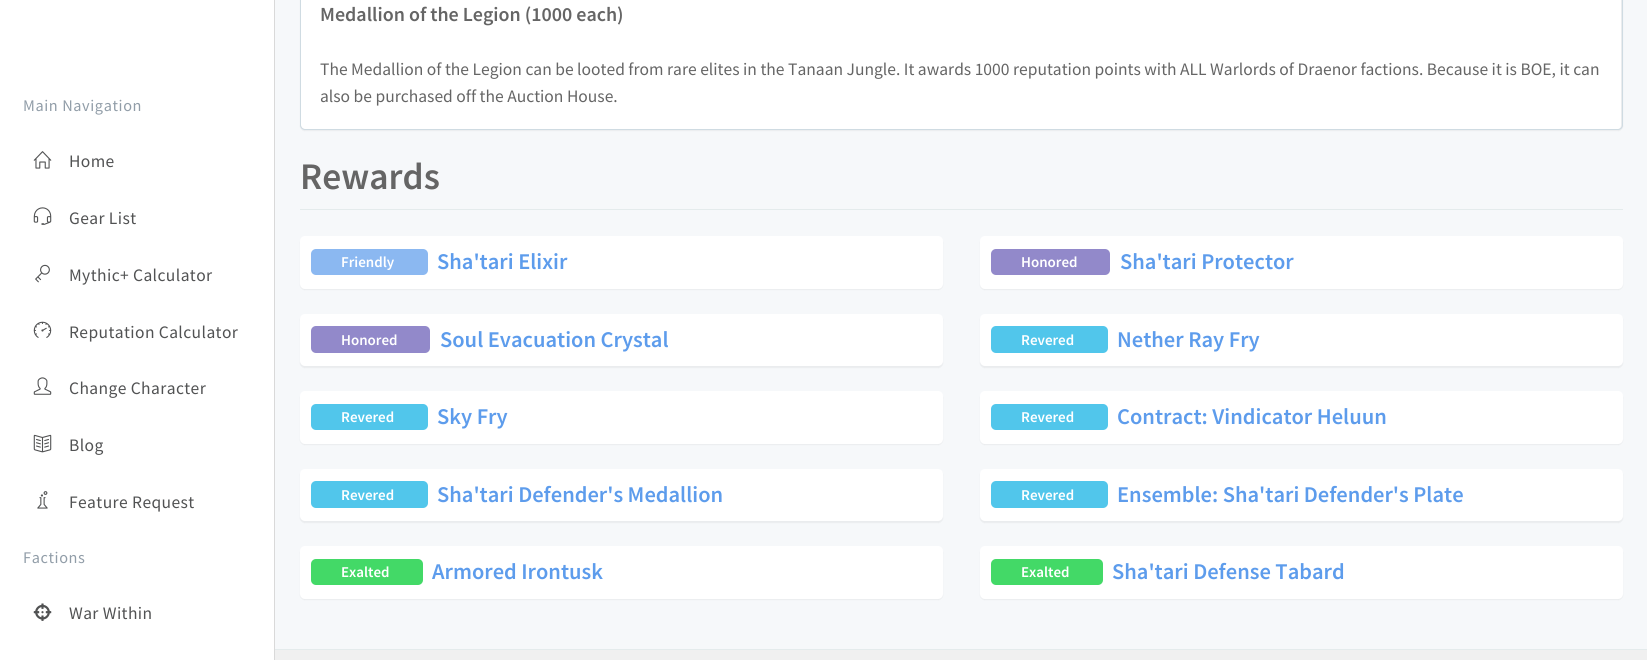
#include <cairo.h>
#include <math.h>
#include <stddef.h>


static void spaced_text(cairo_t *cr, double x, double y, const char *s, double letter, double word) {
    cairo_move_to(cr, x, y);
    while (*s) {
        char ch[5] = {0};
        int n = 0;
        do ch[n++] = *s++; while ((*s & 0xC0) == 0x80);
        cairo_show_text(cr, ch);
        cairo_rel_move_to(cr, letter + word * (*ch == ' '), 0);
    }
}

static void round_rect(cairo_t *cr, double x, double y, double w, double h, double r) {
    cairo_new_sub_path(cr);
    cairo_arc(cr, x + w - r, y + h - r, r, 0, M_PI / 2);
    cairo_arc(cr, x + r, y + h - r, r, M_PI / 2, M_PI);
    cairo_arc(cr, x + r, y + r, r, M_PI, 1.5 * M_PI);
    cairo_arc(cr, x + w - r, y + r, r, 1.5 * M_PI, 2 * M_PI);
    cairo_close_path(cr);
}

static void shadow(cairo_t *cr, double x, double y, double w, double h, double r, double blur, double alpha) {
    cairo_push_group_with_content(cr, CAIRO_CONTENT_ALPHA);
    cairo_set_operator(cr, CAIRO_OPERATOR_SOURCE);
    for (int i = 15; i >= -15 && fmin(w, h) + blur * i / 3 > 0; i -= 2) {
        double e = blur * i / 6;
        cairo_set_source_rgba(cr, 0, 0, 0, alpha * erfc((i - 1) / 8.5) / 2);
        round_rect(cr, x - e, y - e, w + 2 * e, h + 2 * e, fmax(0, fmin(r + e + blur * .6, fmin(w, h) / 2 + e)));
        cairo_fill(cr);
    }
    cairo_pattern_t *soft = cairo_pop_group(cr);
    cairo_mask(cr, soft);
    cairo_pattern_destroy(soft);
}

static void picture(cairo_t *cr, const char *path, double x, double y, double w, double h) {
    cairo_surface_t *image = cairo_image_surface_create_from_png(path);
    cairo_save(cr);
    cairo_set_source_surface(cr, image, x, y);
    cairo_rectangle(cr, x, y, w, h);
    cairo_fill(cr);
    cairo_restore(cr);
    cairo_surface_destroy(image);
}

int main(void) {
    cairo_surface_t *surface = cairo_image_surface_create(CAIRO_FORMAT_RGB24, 1647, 660);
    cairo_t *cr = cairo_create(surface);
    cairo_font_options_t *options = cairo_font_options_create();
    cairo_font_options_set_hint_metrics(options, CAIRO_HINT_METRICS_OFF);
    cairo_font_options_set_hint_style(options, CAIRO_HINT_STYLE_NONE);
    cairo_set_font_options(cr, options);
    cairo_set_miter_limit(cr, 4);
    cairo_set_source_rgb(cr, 0.941, 0.941, 0.941);
    cairo_paint(cr);
    cairo_set_source_rgb(cr, 1, 1, 1);
    cairo_rectangle(cr, 0, 0, 274, 660);
    cairo_fill(cr);
    cairo_select_font_face(cr, "Source Sans Pro", CAIRO_FONT_SLANT_NORMAL, CAIRO_FONT_WEIGHT_NORMAL);
    cairo_set_font_size(cr, 16.25);
    cairo_set_source_rgb(cr, 0.569, 0.616, 0.659);
    spaced_text(cr, 23, 111, "Main Navigation", 0.6, 0);
    picture(cr, "img1.png", 33, 151, 19, 18);
    cairo_set_font_size(cr, 17.5);
    cairo_set_source_rgb(cr, 0.318, 0.322, 0.325);
    spaced_text(cr, 69, 167, "Home", 0.4, 0);
    picture(cr, "img2.png", 33, 207, 19, 18);
    spaced_text(cr, 69, 224, "Gear List", 0.4, 0);
    picture(cr, "img3.png", 35, 264, 15, 19);
    spaced_text(cr, 69, 281, "Mythic+ Calculator", 0.4, 0);
    picture(cr, "img4.png", 33, 321, 19, 17);
    spaced_text(cr, 69, 338, "Reputation Calculator", 0.4, 0);
    picture(cr, "img5.png", 33, 377, 19, 18);
    spaced_text(cr, 69, 394, "Change Character", 0.4, 0);
    picture(cr, "img6.png", 33, 434, 19, 19);
    spaced_text(cr, 69, 451, "Blog", 0.4, 0);
    picture(cr, "img7.png", 37, 491, 11, 18);
    spaced_text(cr, 69, 508, "Feature Request", 0.4, 0);
    cairo_set_font_size(cr, 16.25);
    cairo_set_source_rgb(cr, 0.569, 0.616, 0.659);
    spaced_text(cr, 23, 563, "Factions", 0.6, 0);
    picture(cr, "img8.png", 33, 603, 19, 18);
    cairo_set_font_size(cr, 17.5);
    cairo_set_source_rgb(cr, 0.318, 0.322, 0.325);
    spaced_text(cr, 69, 619, "War Within", 0.4, 0);
    cairo_set_source_rgb(cr, 0.851, 0.851, 0.851);
    cairo_rectangle(cr, 274, 0, 1, 660);
    cairo_fill(cr);
    cairo_set_source_rgb(cr, 0.961, 0.969, 0.98);
    cairo_rectangle(cr, 275, 0, 1372, 649);
    cairo_fill(cr);
    cairo_set_source_rgb(cr, 0, 0, 0);
    shadow(cr, 300, -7, 1323, 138, 5, 0.5, 0.05);
    cairo_set_source_rgb(cr, 1, 1, 1);
    cairo_new_path(cr);
    cairo_move_to(cr, 305, -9);
    cairo_line_to(cr, 1618, -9);
    cairo_curve_to(cr, 1620, -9, 1621, -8, 1621, -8);
    cairo_line_to(cr, 1621, 125);
    cairo_curve_to(cr, 1621, 127, 1620, 129, 1618, 129);
    cairo_line_to(cr, 305, 129);
    cairo_curve_to(cr, 303, 129, 301, 127, 301, 125);
    cairo_line_to(cr, 301, -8);
    cairo_curve_to(cr, 301, -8, 303, -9, 305, -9);
    cairo_close_path(cr);
    cairo_fill(cr);
    round_rect(cr, 300.5, -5.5, 1322, 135, 4.5);
    cairo_set_source_rgb(cr, 0.812, 0.859, 0.886);
    cairo_set_line_width(cr, 1);
    cairo_stroke(cr);
    cairo_select_font_face(cr, "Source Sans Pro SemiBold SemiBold", CAIRO_FONT_SLANT_NORMAL, CAIRO_FONT_WEIGHT_NORMAL);
    cairo_set_font_size(cr, 20);
    cairo_set_source_rgb(cr, 0.396, 0.396, 0.396);
    cairo_move_to(cr, 320, 21);
    cairo_show_text(cr, "Medallion of the Legion (1000 each)");
    cairo_select_font_face(cr, "Source Sans Pro", CAIRO_FONT_SLANT_NORMAL, CAIRO_FONT_WEIGHT_NORMAL);
    cairo_set_font_size(cr, 17.5);
    cairo_move_to(cr, 320, 75);
    cairo_show_text(cr, "The Medallion of the Legion can be looted from rare elites in the Tanaan Jungle. It awards 1000 reputation points with ALL Warlords of Draenor factions. Because it is BOE, it can");
    cairo_move_to(cr, 320, 102);
    cairo_show_text(cr, "also be purchased off the Auction House.");
    cairo_set_source_rgb(cr, 0.894, 0.918, 0.925);
    cairo_rectangle(cr, 300, 209, 1323, 1);
    cairo_fill(cr);
    cairo_select_font_face(cr, "Source Sans Pro SemiBold SemiBold", CAIRO_FONT_SLANT_NORMAL, CAIRO_FONT_WEIGHT_NORMAL);
    cairo_set_font_size(cr, 37.5);
    cairo_set_source_rgb(cr, 0.396, 0.396, 0.396);
    cairo_move_to(cr, 300, 189);
    cairo_show_text(cr, "Rewards");
    cairo_set_source_rgb(cr, 0, 0, 0);
    shadow(cr, 300, 238, 643, 52, 5, 0.5, 0.05);
    cairo_set_source_rgb(cr, 1, 1, 1);
    round_rect(cr, 300, 236, 643, 53, 5);
    cairo_fill(cr);
    cairo_set_source_rgb(cr, 0.545, 0.722, 0.945);
    round_rect(cr, 311, 249, 117, 26, 5);
    cairo_fill(cr);
    cairo_set_font_size(cr, 15);
    cairo_set_source_rgb(cr, 1, 1, 1);
    cairo_move_to(cr, 341, 267);
    cairo_show_text(cr, "Friendly");
    cairo_set_font_size(cr, 22.5);
    cairo_set_source_rgb(cr, 0.365, 0.612, 0.925);
    cairo_move_to(cr, 437, 269);
    cairo_show_text(cr, "Sha'tari Elixir");
    cairo_set_source_rgb(cr, 0, 0, 0);
    shadow(cr, 980, 238, 643, 52, 5, 0.5, 0.05);
    cairo_set_source_rgb(cr, 1, 1, 1);
    round_rect(cr, 980, 236, 643, 53, 5);
    cairo_fill(cr);
    cairo_set_source_rgb(cr, 0.573, 0.537, 0.792);
    round_rect(cr, 991, 249, 119, 26, 5);
    cairo_fill(cr);
    cairo_set_font_size(cr, 15);
    cairo_set_source_rgb(cr, 1, 1, 1);
    cairo_move_to(cr, 1021, 267);
    cairo_show_text(cr, "Honored");
    cairo_set_font_size(cr, 22.5);
    cairo_set_source_rgb(cr, 0.365, 0.612, 0.925);
    cairo_move_to(cr, 1120, 269);
    cairo_show_text(cr, "Sha'tari Protector");
    cairo_set_source_rgb(cr, 0, 0, 0);
    shadow(cr, 300, 315, 643, 53, 5, 0.5, 0.05);
    cairo_set_source_rgb(cr, 1, 1, 1);
    round_rect(cr, 300, 314, 643, 52, 5);
    cairo_fill(cr);
    cairo_set_source_rgb(cr, 0.573, 0.537, 0.792);
    round_rect(cr, 311, 326, 119, 27, 5);
    cairo_fill(cr);
    cairo_set_font_size(cr, 15);
    cairo_set_source_rgb(cr, 1, 1, 1);
    cairo_move_to(cr, 341, 345);
    cairo_show_text(cr, "Honored");
    cairo_set_font_size(cr, 22.5);
    cairo_set_source_rgb(cr, 0.365, 0.612, 0.925);
    cairo_move_to(cr, 440, 347);
    cairo_show_text(cr, "Soul Evacuation Crystal");
    cairo_set_source_rgb(cr, 0, 0, 0);
    shadow(cr, 980, 315, 643, 53, 5, 0.5, 0.05);
    cairo_set_source_rgb(cr, 1, 1, 1);
    round_rect(cr, 980, 314, 643, 52, 5);
    cairo_fill(cr);
    cairo_set_source_rgb(cr, 0.318, 0.776, 0.918);
    round_rect(cr, 991, 326, 117, 27, 5);
    cairo_fill(cr);
    cairo_set_font_size(cr, 15);
    cairo_set_source_rgb(cr, 1, 1, 1);
    cairo_move_to(cr, 1021, 345);
    cairo_show_text(cr, "Revered");
    cairo_set_font_size(cr, 22.5);
    cairo_set_source_rgb(cr, 0.365, 0.612, 0.925);
    cairo_move_to(cr, 1117, 347);
    cairo_show_text(cr, "Nether Ray Fry");
    cairo_set_source_rgb(cr, 0, 0, 0);
    shadow(cr, 300, 393, 643, 52, 5, 0.5, 0.05);
    cairo_set_source_rgb(cr, 1, 1, 1);
    round_rect(cr, 300, 391, 643, 53, 5);
    cairo_fill(cr);
    cairo_set_source_rgb(cr, 0.318, 0.776, 0.918);
    round_rect(cr, 311, 404, 117, 26, 5);
    cairo_fill(cr);
    cairo_set_font_size(cr, 15);
    cairo_set_source_rgb(cr, 1, 1, 1);
    cairo_move_to(cr, 341, 422);
    cairo_show_text(cr, "Revered");
    cairo_set_font_size(cr, 22.5);
    cairo_set_source_rgb(cr, 0.365, 0.612, 0.925);
    cairo_move_to(cr, 437, 424);
    cairo_show_text(cr, "Sky Fry");
    cairo_set_source_rgb(cr, 0, 0, 0);
    shadow(cr, 980, 393, 643, 52, 5, 0.5, 0.05);
    cairo_set_source_rgb(cr, 1, 1, 1);
    round_rect(cr, 980, 391, 643, 53, 5);
    cairo_fill(cr);
    cairo_set_source_rgb(cr, 0.318, 0.776, 0.918);
    round_rect(cr, 991, 404, 117, 26, 5);
    cairo_fill(cr);
    cairo_set_font_size(cr, 15);
    cairo_set_source_rgb(cr, 1, 1, 1);
    cairo_move_to(cr, 1021, 422);
    cairo_show_text(cr, "Revered");
    cairo_set_font_size(cr, 22.5);
    cairo_set_source_rgb(cr, 0.365, 0.612, 0.925);
    cairo_move_to(cr, 1117, 424);
    cairo_show_text(cr, "Contract: Vindicator Heluun");
    cairo_set_source_rgb(cr, 0, 0, 0);
    shadow(cr, 300, 470, 643, 53, 5, 0.5, 0.05);
    cairo_set_source_rgb(cr, 1, 1, 1);
    round_rect(cr, 300, 469, 643, 52, 5);
    cairo_fill(cr);
    cairo_set_source_rgb(cr, 0.318, 0.776, 0.918);
    round_rect(cr, 311, 481, 117, 27, 5);
    cairo_fill(cr);
    cairo_set_font_size(cr, 15);
    cairo_set_source_rgb(cr, 1, 1, 1);
    cairo_move_to(cr, 341, 500);
    cairo_show_text(cr, "Revered");
    cairo_set_font_size(cr, 22.5);
    cairo_set_source_rgb(cr, 0.365, 0.612, 0.925);
    cairo_move_to(cr, 437, 502);
    cairo_show_text(cr, "Sha'tari Defender's Medallion");
    cairo_set_source_rgb(cr, 0, 0, 0);
    shadow(cr, 980, 470, 643, 53, 5, 0.5, 0.05);
    cairo_set_source_rgb(cr, 1, 1, 1);
    round_rect(cr, 980, 469, 643, 52, 5);
    cairo_fill(cr);
    cairo_set_source_rgb(cr, 0.318, 0.776, 0.918);
    round_rect(cr, 991, 481, 117, 27, 5);
    cairo_fill(cr);
    cairo_set_font_size(cr, 15);
    cairo_set_source_rgb(cr, 1, 1, 1);
    cairo_move_to(cr, 1021, 500);
    cairo_show_text(cr, "Revered");
    cairo_set_font_size(cr, 22.5);
    cairo_set_source_rgb(cr, 0.365, 0.612, 0.925);
    cairo_move_to(cr, 1117, 502);
    cairo_show_text(cr, "Ensemble: Sha'tari Defender's Plate");
    cairo_set_source_rgb(cr, 0, 0, 0);
    shadow(cr, 300, 548, 643, 52, 5, 0.5, 0.05);
    cairo_set_source_rgb(cr, 1, 1, 1);
    round_rect(cr, 300, 546, 643, 53, 5);
    cairo_fill(cr);
    cairo_set_source_rgb(cr, 0.263, 0.851, 0.404);
    round_rect(cr, 311, 559, 112, 26, 5);
    cairo_fill(cr);
    cairo_set_font_size(cr, 15);
    cairo_set_source_rgb(cr, 1, 1, 1);
    cairo_move_to(cr, 341, 577);
    cairo_show_text(cr, "Exalted");
    cairo_set_font_size(cr, 22.5);
    cairo_set_source_rgb(cr, 0.365, 0.612, 0.925);
    cairo_move_to(cr, 432, 579);
    cairo_show_text(cr, "Armored Irontusk");
    cairo_set_source_rgb(cr, 0, 0, 0);
    shadow(cr, 980, 548, 643, 52, 5, 0.5, 0.05);
    cairo_set_source_rgb(cr, 1, 1, 1);
    round_rect(cr, 980, 546, 643, 53, 5);
    cairo_fill(cr);
    cairo_set_source_rgb(cr, 0.263, 0.851, 0.404);
    round_rect(cr, 991, 559, 112, 26, 5);
    cairo_fill(cr);
    cairo_set_font_size(cr, 15);
    cairo_set_source_rgb(cr, 1, 1, 1);
    cairo_move_to(cr, 1021, 577);
    cairo_show_text(cr, "Exalted");
    cairo_set_font_size(cr, 22.5);
    cairo_set_source_rgb(cr, 0.365, 0.612, 0.925);
    cairo_move_to(cr, 1112, 579);
    cairo_show_text(cr, "Sha'tari Defense Tabard");
    cairo_set_source_rgb(cr, 0.894, 0.918, 0.925);
    cairo_rectangle(cr, 275, 649, 1372, 1);
    cairo_fill(cr);
    cairo_surface_write_to_png(surface, "page.png");
    cairo_font_options_destroy(options);
    cairo_destroy(cr);
    cairo_surface_destroy(surface);
    return 0;
}
